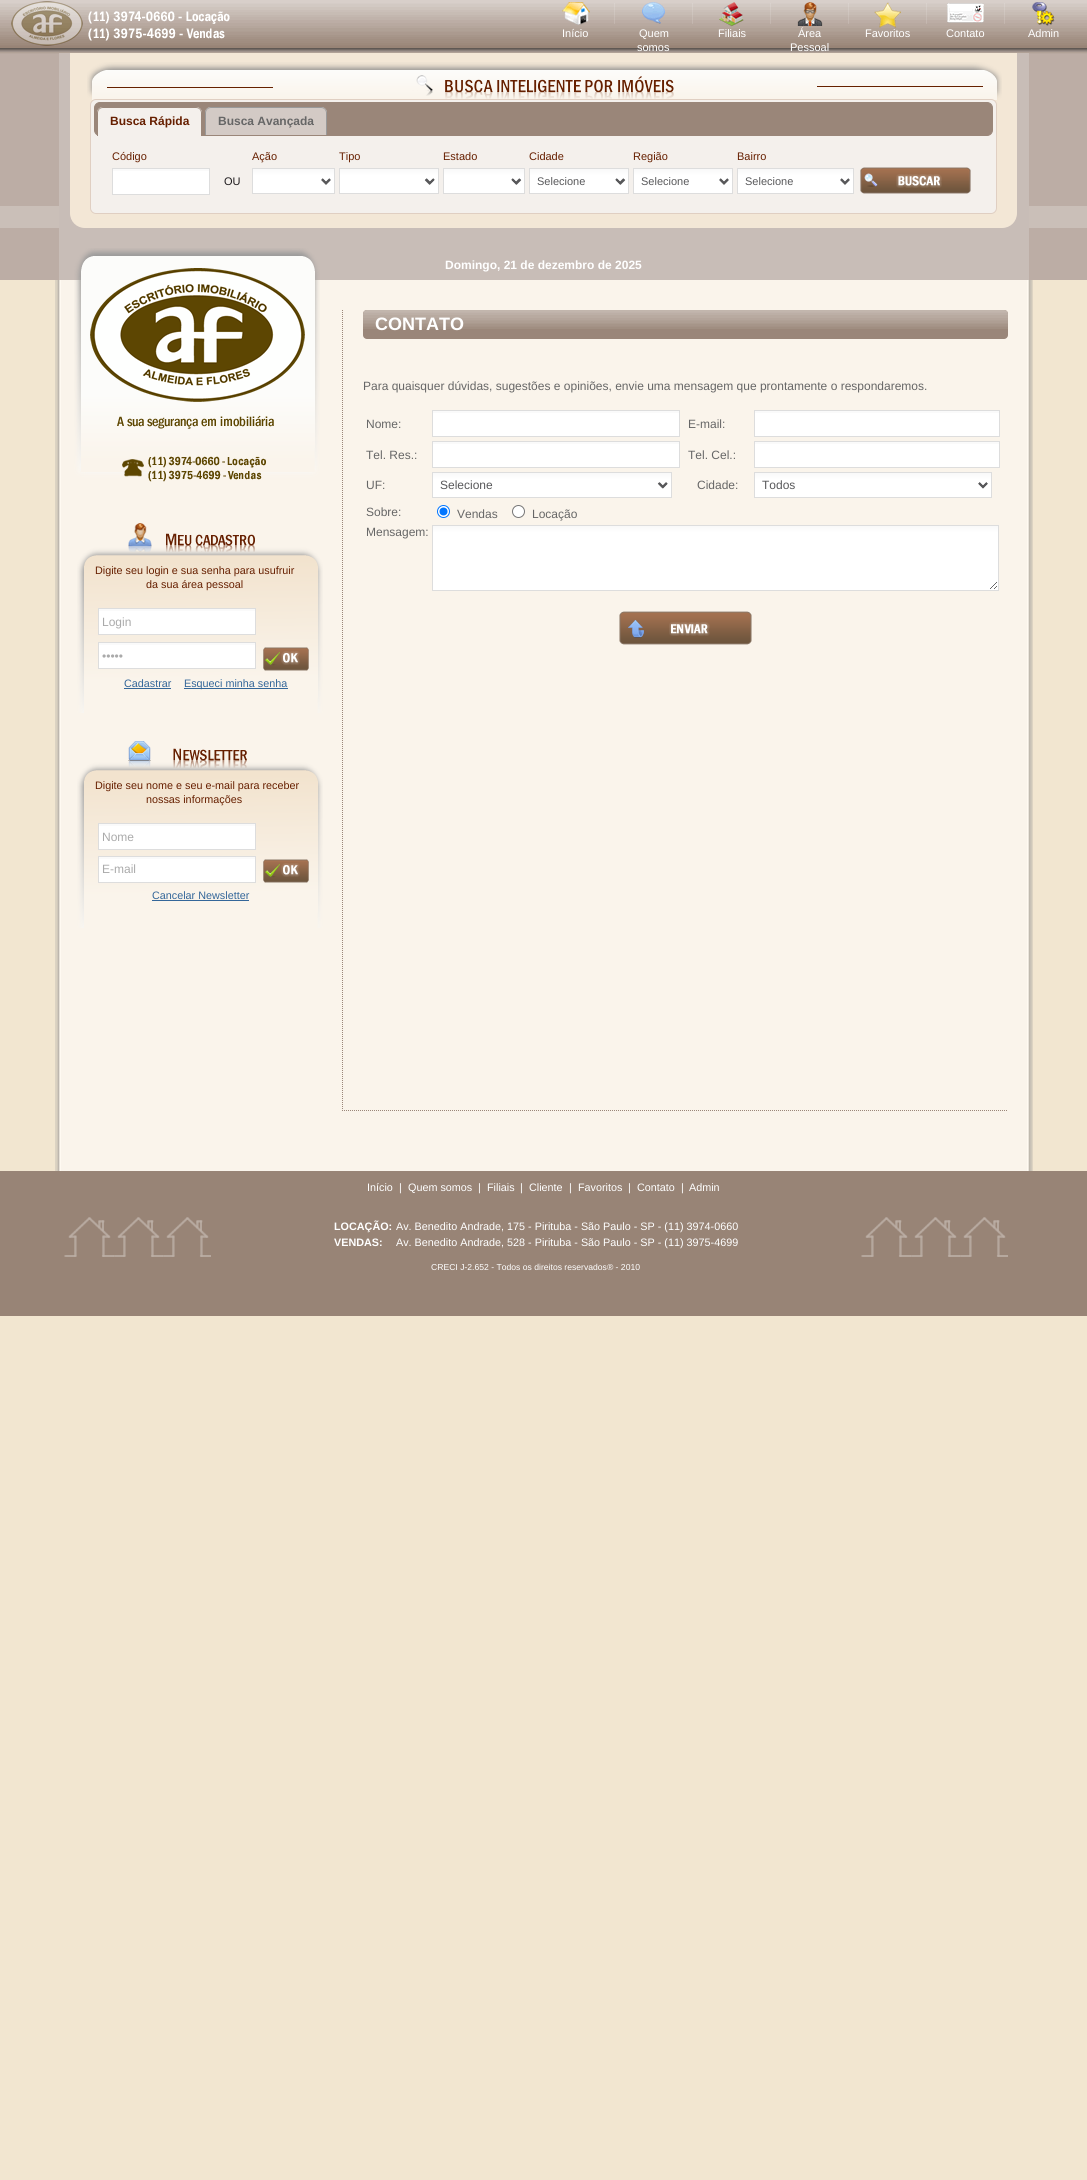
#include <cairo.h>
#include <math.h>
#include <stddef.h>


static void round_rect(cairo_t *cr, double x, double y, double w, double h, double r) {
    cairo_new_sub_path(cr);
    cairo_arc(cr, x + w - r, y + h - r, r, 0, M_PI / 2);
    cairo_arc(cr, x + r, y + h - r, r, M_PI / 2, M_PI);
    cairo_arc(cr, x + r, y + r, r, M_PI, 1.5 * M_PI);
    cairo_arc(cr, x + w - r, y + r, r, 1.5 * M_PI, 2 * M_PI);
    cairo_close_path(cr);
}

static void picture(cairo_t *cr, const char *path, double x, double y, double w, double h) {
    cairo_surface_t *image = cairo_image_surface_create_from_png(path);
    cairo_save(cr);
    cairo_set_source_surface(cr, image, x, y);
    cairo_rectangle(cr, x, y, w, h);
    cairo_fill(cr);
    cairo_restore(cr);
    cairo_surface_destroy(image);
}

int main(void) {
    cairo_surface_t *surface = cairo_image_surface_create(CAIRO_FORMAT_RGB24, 1087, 2180);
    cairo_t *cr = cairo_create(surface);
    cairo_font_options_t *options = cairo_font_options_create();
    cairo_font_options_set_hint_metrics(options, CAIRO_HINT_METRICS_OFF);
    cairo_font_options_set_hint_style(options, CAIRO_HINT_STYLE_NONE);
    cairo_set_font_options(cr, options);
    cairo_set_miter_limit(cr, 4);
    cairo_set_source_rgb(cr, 0.949, 0.902, 0.816);
    cairo_paint(cr);
    picture(cr, "img1.png", 0, 0, 1087, 280);
    picture(cr, "img2.png", 11, 1, 219, 45);
    cairo_set_source_rgba(cr, 1, 1, 1, 0.13);
    cairo_rectangle(cr, 614, 3, 1, 21);
    cairo_fill(cr);
    cairo_rectangle(cr, 692, 3, 1, 21);
    cairo_fill(cr);
    cairo_rectangle(cr, 770, 3, 1, 21);
    cairo_fill(cr);
    cairo_rectangle(cr, 848, 3, 1, 21);
    cairo_fill(cr);
    cairo_rectangle(cr, 926, 3, 1, 21);
    cairo_fill(cr);
    cairo_rectangle(cr, 1004, 3, 1, 21);
    cairo_fill(cr);
    picture(cr, "img3.png", 562, 2, 28, 23);
    cairo_select_font_face(cr, "Liberation Sans", CAIRO_FONT_SLANT_NORMAL, CAIRO_FONT_WEIGHT_NORMAL);
    cairo_set_font_size(cr, 11);
    cairo_set_source_rgb(cr, 1, 1, 1);
    cairo_move_to(cr, 562, 37);
    cairo_show_text(cr, "Início");
    picture(cr, "img4.png", 642, 2, 23, 22);
    cairo_move_to(cr, 639, 37);
    cairo_show_text(cr, "Quem");
    cairo_move_to(cr, 637, 51);
    cairo_show_text(cr, "somos");
    picture(cr, "img5.png", 719, 2, 25, 25);
    cairo_move_to(cr, 718, 37);
    cairo_show_text(cr, "Filiais");
    picture(cr, "img6.png", 797, 2, 26, 24);
    cairo_move_to(cr, 798, 37);
    cairo_show_text(cr, "Área");
    cairo_move_to(cr, 790, 51);
    cairo_show_text(cr, "Pessoal");
    picture(cr, "img7.png", 874, 2, 27, 26);
    cairo_move_to(cr, 865, 37);
    cairo_show_text(cr, "Favoritos");
    picture(cr, "img8.png", 947, 3, 37, 20);
    cairo_move_to(cr, 946, 37);
    cairo_show_text(cr, "Contato");
    picture(cr, "img9.png", 1032, 2, 23, 24);
    cairo_move_to(cr, 1028, 37);
    cairo_show_text(cr, "Admin");
    cairo_set_source_rgb(cr, 0.784, 0.741, 0.718);
    cairo_rectangle(cr, 59, 53, 970, 227);
    cairo_fill(cr);
    cairo_set_source_rgb(cr, 0.953, 0.906, 0.839);
    cairo_new_path(cr);
    cairo_move_to(cr, 70, 53);
    cairo_line_to(cr, 1017, 53);
    cairo_line_to(cr, 1017, 213);
    cairo_curve_to(cr, 1017, 221.5, 1010.5, 228, 1002, 228);
    cairo_line_to(cr, 85, 228);
    cairo_curve_to(cr, 76.5, 228, 70, 221.5, 70, 213);
    cairo_close_path(cr);
    cairo_fill(cr);
    picture(cr, "img10.png", 87, 62, 915, 38);
    cairo_set_source_rgb(cr, 0.957, 0.941, 0.925);
    round_rect(cr, 90.5, 99.5, 906, 114, 5.5);
    cairo_fill_preserve(cr);
    cairo_set_source_rgb(cr, 0.878, 0.812, 0.761);
    cairo_set_line_width(cr, 1);
    cairo_stroke(cr);
    cairo_set_source_rgb(cr, 0.604, 0.525, 0.475);
    round_rect(cr, 94.5, 102.5, 898, 33, 5.5);
    cairo_fill_preserve(cr);
    cairo_stroke(cr);
    cairo_set_source_rgb(cr, 0.957, 0.941, 0.925);
    cairo_new_path(cr);
    cairo_move_to(cr, 103, 107);
    cairo_line_to(cr, 196, 107);
    cairo_curve_to(cr, 199.5, 107, 202, 109.5, 202, 113);
    cairo_line_to(cr, 202, 136);
    cairo_line_to(cr, 97, 136);
    cairo_line_to(cr, 97, 113);
    cairo_curve_to(cr, 97, 109.5, 99.5, 107, 103, 107);
    cairo_close_path(cr);
    cairo_fill(cr);
    cairo_set_source_rgb(cr, 0.604, 0.525, 0.475);
    cairo_set_fill_rule(cr, CAIRO_FILL_RULE_EVEN_ODD);
    cairo_new_path(cr);
    cairo_move_to(cr, 103, 107);
    cairo_line_to(cr, 196, 107);
    cairo_curve_to(cr, 199, 107, 202, 110, 202, 113);
    cairo_line_to(cr, 202, 136);
    cairo_line_to(cr, 97, 136);
    cairo_line_to(cr, 97, 113);
    cairo_curve_to(cr, 97, 110, 100, 107, 103, 107);
    cairo_close_path(cr);
    cairo_move_to(cr, 103, 108);
    cairo_line_to(cr, 196, 108);
    cairo_curve_to(cr, 199, 108, 201, 110, 201, 113);
    cairo_line_to(cr, 201, 136);
    cairo_line_to(cr, 98, 136);
    cairo_line_to(cr, 98, 113);
    cairo_curve_to(cr, 98, 110, 100, 108, 103, 108);
    cairo_close_path(cr);
    cairo_fill(cr);
    cairo_select_font_face(cr, "Liberation Sans", CAIRO_FONT_SLANT_NORMAL, CAIRO_FONT_WEIGHT_BOLD);
    cairo_set_font_size(cr, 12);
    cairo_set_source_rgb(cr, 0.4, 0.122, 0);
    cairo_move_to(cr, 110, 125);
    cairo_show_text(cr, "Busca Rápida");
    cairo_set_source_rgb(cr, 0.827, 0.792, 0.773);
    cairo_new_path(cr);
    cairo_move_to(cr, 211, 107);
    cairo_line_to(cr, 321, 107);
    cairo_curve_to(cr, 324.5, 107, 327, 109.5, 327, 113);
    cairo_line_to(cr, 327, 135);
    cairo_line_to(cr, 205, 135);
    cairo_line_to(cr, 205, 113);
    cairo_curve_to(cr, 205, 109.5, 207.5, 107, 211, 107);
    cairo_close_path(cr);
    cairo_fill(cr);
    cairo_set_source_rgb(cr, 0.6, 0.6, 0.6);
    cairo_new_path(cr);
    cairo_move_to(cr, 211, 107);
    cairo_line_to(cr, 321, 107);
    cairo_curve_to(cr, 324, 107, 327, 110, 327, 113);
    cairo_line_to(cr, 327, 135);
    cairo_line_to(cr, 205, 135);
    cairo_line_to(cr, 205, 113);
    cairo_curve_to(cr, 205, 110, 208, 107, 211, 107);
    cairo_close_path(cr);
    cairo_move_to(cr, 211, 108);
    cairo_line_to(cr, 321, 108);
    cairo_curve_to(cr, 324, 108, 326, 110, 326, 113);
    cairo_line_to(cr, 326, 135);
    cairo_line_to(cr, 206, 135);
    cairo_line_to(cr, 206, 113);
    cairo_curve_to(cr, 206, 110, 208, 108, 211, 108);
    cairo_close_path(cr);
    cairo_fill(cr);
    cairo_set_source_rgb(cr, 0.4, 0.4, 0.4);
    cairo_move_to(cr, 218, 125);
    cairo_show_text(cr, "Busca Avançada");
    cairo_select_font_face(cr, "Liberation Sans", CAIRO_FONT_SLANT_NORMAL, CAIRO_FONT_WEIGHT_NORMAL);
    cairo_set_font_size(cr, 11);
    cairo_set_source_rgb(cr, 0.4, 0.122, 0);
    cairo_move_to(cr, 112, 160);
    cairo_show_text(cr, "Código");
    cairo_move_to(cr, 252, 160);
    cairo_show_text(cr, "Ação");
    cairo_move_to(cr, 339, 160);
    cairo_show_text(cr, "Tipo");
    cairo_move_to(cr, 443, 160);
    cairo_show_text(cr, "Estado");
    cairo_move_to(cr, 529, 160);
    cairo_show_text(cr, "Cidade");
    cairo_move_to(cr, 633, 160);
    cairo_show_text(cr, "Região");
    cairo_move_to(cr, 737, 160);
    cairo_show_text(cr, "Bairro");
    cairo_set_source_rgb(cr, 1, 1, 1);
    cairo_rectangle(cr, 113, 171, 96, 23);
    cairo_fill(cr);
    cairo_set_source_rgb(cr, 0.98, 0.98, 0.98);
    cairo_rectangle(cr, 112, 169, 98, 2);
    cairo_fill(cr);
    cairo_rectangle(cr, 112.5, 168.5, 97, 26);
    cairo_set_source_rgb(cr, 0.867, 0.867, 0.867);
    cairo_stroke(cr);
    cairo_set_source_rgb(cr, 0.118, 0.106, 0.114);
    cairo_move_to(cr, 224, 185);
    cairo_show_text(cr, "OU");
    cairo_set_source_rgb(cr, 1, 1, 1);
    cairo_rectangle(cr, 253, 175, 81, 18);
    cairo_fill(cr);
    picture(cr, "img11.png", 253, 169, 81, 16);
    cairo_rectangle(cr, 252.5, 168.5, 82, 25);
    cairo_set_source_rgb(cr, 0.867, 0.867, 0.867);
    cairo_stroke(cr);
    cairo_new_path(cr);
    cairo_move_to(cr, 322, 179.5);
    cairo_line_to(cr, 326, 183.5);
    cairo_line_to(cr, 330, 179.5);
    cairo_set_source_rgb(cr, 0.345, 0.345, 0.353);
    cairo_set_line_width(cr, 2);
    cairo_stroke(cr);
    cairo_set_source_rgb(cr, 1, 1, 1);
    cairo_rectangle(cr, 340, 175, 98, 18);
    cairo_fill(cr);
    picture(cr, "img12.png", 340, 169, 98, 16);
    cairo_rectangle(cr, 339.5, 168.5, 99, 25);
    cairo_set_source_rgb(cr, 0.867, 0.867, 0.867);
    cairo_set_line_width(cr, 1);
    cairo_stroke(cr);
    cairo_new_path(cr);
    cairo_move_to(cr, 425.5, 179.5);
    cairo_line_to(cr, 429.5, 183.5);
    cairo_line_to(cr, 433.5, 179.5);
    cairo_set_source_rgb(cr, 0.345, 0.345, 0.353);
    cairo_set_line_width(cr, 2);
    cairo_stroke(cr);
    cairo_set_source_rgb(cr, 1, 1, 1);
    cairo_rectangle(cr, 444, 175, 80, 18);
    cairo_fill(cr);
    picture(cr, "img13.png", 444, 169, 80, 16);
    cairo_rectangle(cr, 443.5, 168.5, 81, 25);
    cairo_set_source_rgb(cr, 0.867, 0.867, 0.867);
    cairo_set_line_width(cr, 1);
    cairo_stroke(cr);
    cairo_new_path(cr);
    cairo_move_to(cr, 512.5, 179.5);
    cairo_line_to(cr, 516.5, 183.5);
    cairo_line_to(cr, 520.5, 179.5);
    cairo_set_source_rgb(cr, 0.345, 0.345, 0.353);
    cairo_set_line_width(cr, 2);
    cairo_stroke(cr);
    cairo_set_source_rgb(cr, 1, 1, 1);
    cairo_rectangle(cr, 530, 175, 98, 18);
    cairo_fill(cr);
    picture(cr, "img12.png", 530, 169, 98, 16);
    cairo_rectangle(cr, 529.5, 168.5, 99, 25);
    cairo_set_source_rgb(cr, 0.867, 0.867, 0.867);
    cairo_set_line_width(cr, 1);
    cairo_stroke(cr);
    cairo_new_path(cr);
    cairo_move_to(cr, 616.5, 179.5);
    cairo_line_to(cr, 620.5, 183.5);
    cairo_line_to(cr, 624.5, 179.5);
    cairo_set_source_rgb(cr, 0.345, 0.345, 0.353);
    cairo_set_line_width(cr, 2);
    cairo_stroke(cr);
    cairo_move_to(cr, 537, 185);
    cairo_show_text(cr, "Selecione");
    cairo_set_source_rgb(cr, 1, 1, 1);
    cairo_rectangle(cr, 634, 175, 98, 18);
    cairo_fill(cr);
    picture(cr, "img12.png", 634, 169, 98, 16);
    cairo_rectangle(cr, 633.5, 168.5, 99, 25);
    cairo_set_source_rgb(cr, 0.867, 0.867, 0.867);
    cairo_set_line_width(cr, 1);
    cairo_stroke(cr);
    cairo_new_path(cr);
    cairo_move_to(cr, 720, 179.5);
    cairo_line_to(cr, 724, 183.5);
    cairo_line_to(cr, 728, 179.5);
    cairo_set_source_rgb(cr, 0.345, 0.345, 0.353);
    cairo_set_line_width(cr, 2);
    cairo_stroke(cr);
    cairo_move_to(cr, 641, 185);
    cairo_show_text(cr, "Selecione");
    cairo_set_source_rgb(cr, 1, 1, 1);
    cairo_rectangle(cr, 738, 175, 115, 18);
    cairo_fill(cr);
    picture(cr, "img14.png", 738, 169, 115, 16);
    cairo_rectangle(cr, 737.5, 168.5, 116, 25);
    cairo_set_source_rgb(cr, 0.867, 0.867, 0.867);
    cairo_set_line_width(cr, 1);
    cairo_stroke(cr);
    cairo_new_path(cr);
    cairo_move_to(cr, 841, 179.5);
    cairo_line_to(cr, 845, 183.5);
    cairo_line_to(cr, 849, 179.5);
    cairo_set_source_rgb(cr, 0.345, 0.345, 0.353);
    cairo_set_line_width(cr, 2);
    cairo_stroke(cr);
    cairo_move_to(cr, 745, 185);
    cairo_show_text(cr, "Selecione");
    picture(cr, "img15.png", 860, 167, 111, 27);
    cairo_select_font_face(cr, "Liberation Sans", CAIRO_FONT_SLANT_NORMAL, CAIRO_FONT_WEIGHT_BOLD);
    cairo_set_font_size(cr, 12);
    cairo_set_source_rgb(cr, 1, 1, 1);
    cairo_move_to(cr, 445, 269);
    cairo_show_text(cr, "Domingo, 21 de dezembro de 2025");
    picture(cr, "img16.png", 55, 280, 978, 891);
    cairo_new_path(cr);
    cairo_move_to(cr, 342, 1110.5);
    cairo_line_to(cr, 1008, 1110.5);
    cairo_set_source_rgb(cr, 0.604, 0.525, 0.475);
    cairo_set_line_width(cr, 1);
    cairo_set_dash(cr, (double[]){1, 1}, 2, 0);
    cairo_stroke(cr);
    cairo_new_path(cr);
    cairo_move_to(cr, 342.5, 310);
    cairo_line_to(cr, 342.5, 1111);
    cairo_stroke(cr);
    round_rect(cr, 363, 310, 645, 29, 4);
    cairo_fill(cr);
    picture(cr, "img17.png", 363, 310, 645, 19);
    cairo_set_font_size(cr, 18);
    cairo_set_source_rgb(cr, 1, 1, 1);
    cairo_move_to(cr, 375, 330);
    cairo_show_text(cr, "CONTATO");
    cairo_select_font_face(cr, "Liberation Sans", CAIRO_FONT_SLANT_NORMAL, CAIRO_FONT_WEIGHT_NORMAL);
    cairo_set_font_size(cr, 12);
    cairo_set_source_rgb(cr, 0.4, 0.4, 0.4);
    cairo_move_to(cr, 363, 390);
    cairo_show_text(cr, "Para quaisquer dúvidas, sugestões e opiniões, envie uma mensagem que prontamente o respondaremos.");
    cairo_move_to(cr, 366, 428);
    cairo_show_text(cr, "Nome:");
    cairo_set_source_rgb(cr, 1, 1, 1);
    cairo_rectangle(cr, 433, 413, 246, 23);
    cairo_fill(cr);
    cairo_set_source_rgb(cr, 0.98, 0.98, 0.98);
    cairo_rectangle(cr, 432, 411, 248, 2);
    cairo_fill(cr);
    cairo_rectangle(cr, 432.5, 410.5, 247, 26);
    cairo_set_source_rgb(cr, 0.867, 0.867, 0.867);
    cairo_set_dash(cr, NULL, 0, 0);
    cairo_stroke(cr);
    cairo_set_source_rgb(cr, 0.4, 0.4, 0.4);
    cairo_move_to(cr, 688, 428);
    cairo_show_text(cr, "E-mail:");
    cairo_set_source_rgb(cr, 1, 1, 1);
    cairo_rectangle(cr, 755, 413, 244, 23);
    cairo_fill(cr);
    cairo_set_source_rgb(cr, 0.98, 0.98, 0.98);
    cairo_rectangle(cr, 754, 411, 246, 2);
    cairo_fill(cr);
    cairo_rectangle(cr, 754.5, 410.5, 245, 26);
    cairo_set_source_rgb(cr, 0.867, 0.867, 0.867);
    cairo_stroke(cr);
    cairo_set_source_rgb(cr, 0.4, 0.4, 0.4);
    cairo_move_to(cr, 366, 459);
    cairo_show_text(cr, "Tel. Res.:");
    cairo_set_source_rgb(cr, 1, 1, 1);
    cairo_rectangle(cr, 433, 444, 246, 23);
    cairo_fill(cr);
    cairo_set_source_rgb(cr, 0.98, 0.98, 0.98);
    cairo_rectangle(cr, 432, 442, 248, 2);
    cairo_fill(cr);
    cairo_rectangle(cr, 432.5, 441.5, 247, 26);
    cairo_set_source_rgb(cr, 0.867, 0.867, 0.867);
    cairo_stroke(cr);
    cairo_set_source_rgb(cr, 0.4, 0.4, 0.4);
    cairo_move_to(cr, 688, 459);
    cairo_show_text(cr, "Tel. Cel.:");
    cairo_set_source_rgb(cr, 1, 1, 1);
    cairo_rectangle(cr, 755, 444, 244, 23);
    cairo_fill(cr);
    cairo_set_source_rgb(cr, 0.98, 0.98, 0.98);
    cairo_rectangle(cr, 754, 442, 246, 2);
    cairo_fill(cr);
    cairo_rectangle(cr, 754.5, 441.5, 245, 26);
    cairo_set_source_rgb(cr, 0.867, 0.867, 0.867);
    cairo_stroke(cr);
    cairo_set_source_rgb(cr, 0.4, 0.4, 0.4);
    cairo_move_to(cr, 366, 489);
    cairo_show_text(cr, "UF:");
    cairo_set_source_rgb(cr, 1, 1, 1);
    cairo_rectangle(cr, 433, 479, 238, 18);
    cairo_fill(cr);
    picture(cr, "img18.png", 433, 473, 238, 16);
    cairo_rectangle(cr, 432.5, 472.5, 239, 25);
    cairo_set_source_rgb(cr, 0.867, 0.867, 0.867);
    cairo_stroke(cr);
    cairo_new_path(cr);
    cairo_move_to(cr, 658.5, 483);
    cairo_line_to(cr, 662.5, 487);
    cairo_line_to(cr, 666.5, 483);
    cairo_set_source_rgb(cr, 0.345, 0.345, 0.353);
    cairo_set_line_width(cr, 2);
    cairo_stroke(cr);
    cairo_move_to(cr, 440, 489);
    cairo_show_text(cr, "Selecione");
    cairo_set_source_rgb(cr, 0.4, 0.4, 0.4);
    cairo_move_to(cr, 697, 489);
    cairo_show_text(cr, "Cidade:");
    cairo_set_source_rgb(cr, 1, 1, 1);
    cairo_rectangle(cr, 755, 479, 236, 18);
    cairo_fill(cr);
    picture(cr, "img19.png", 755, 473, 236, 16);
    cairo_rectangle(cr, 754.5, 472.5, 237, 25);
    cairo_set_source_rgb(cr, 0.867, 0.867, 0.867);
    cairo_set_line_width(cr, 1);
    cairo_stroke(cr);
    cairo_new_path(cr);
    cairo_move_to(cr, 979, 483);
    cairo_line_to(cr, 983, 487);
    cairo_line_to(cr, 987, 483);
    cairo_set_source_rgb(cr, 0.345, 0.345, 0.353);
    cairo_set_line_width(cr, 2);
    cairo_stroke(cr);
    cairo_move_to(cr, 762, 489);
    cairo_show_text(cr, "Todos");
    cairo_set_source_rgb(cr, 0.4, 0.4, 0.4);
    cairo_move_to(cr, 366, 516);
    cairo_show_text(cr, "Sobre:");
    cairo_set_source_rgb(cr, 1, 1, 1);
    cairo_new_path(cr);
    cairo_arc(cr, 443.5, 511.5, 6, 0, 2 * M_PI);
    cairo_fill_preserve(cr);
    cairo_set_source_rgb(cr, 0, 0.459, 1);
    cairo_set_line_width(cr, 1);
    cairo_stroke(cr);
    cairo_arc(cr, 443.5, 511.5, 4, 0, 2 * M_PI);
    cairo_fill(cr);
    cairo_set_source_rgb(cr, 0.4, 0.4, 0.4);
    cairo_move_to(cr, 457, 518);
    cairo_show_text(cr, "Vendas");
    cairo_set_source_rgb(cr, 1, 1, 1);
    cairo_new_path(cr);
    cairo_arc(cr, 518.5, 511.5, 6, 0, 2 * M_PI);
    cairo_fill_preserve(cr);
    cairo_set_source_rgb(cr, 0.463, 0.463, 0.463);
    cairo_stroke(cr);
    cairo_set_source_rgb(cr, 0.4, 0.4, 0.4);
    cairo_move_to(cr, 532, 518);
    cairo_show_text(cr, "Locação");
    cairo_move_to(cr, 366, 536);
    cairo_show_text(cr, "Mensagem:");
    cairo_set_source_rgb(cr, 1, 1, 1);
    cairo_rectangle(cr, 433, 532, 565, 58);
    cairo_fill(cr);
    picture(cr, "img20.png", 433, 526, 565, 63);
    cairo_rectangle(cr, 432.5, 525.5, 566, 65);
    cairo_set_source_rgb(cr, 0.867, 0.867, 0.867);
    cairo_stroke(cr);
    picture(cr, "img21.png", 619, 611, 133, 34);
    picture(cr, "img22.png", 74, 248, 246, 234);
    picture(cr, "img23.png", 77, 523, 246, 190);
    cairo_set_font_size(cr, 10.8);
    cairo_set_source_rgb(cr, 0.4, 0.122, 0);
    cairo_move_to(cr, 95, 574);
    cairo_show_text(cr, "Digite seu login e sua senha para usufruir");
    cairo_move_to(cr, 146, 588);
    cairo_show_text(cr, "da sua área pessoal");
    cairo_set_source_rgb(cr, 1, 1, 1);
    cairo_rectangle(cr, 99, 611, 156, 23);
    cairo_fill(cr);
    cairo_set_source_rgb(cr, 0.98, 0.98, 0.98);
    cairo_rectangle(cr, 98, 609, 158, 2);
    cairo_fill(cr);
    cairo_rectangle(cr, 98.5, 608.5, 157, 26);
    cairo_set_source_rgb(cr, 0.867, 0.867, 0.867);
    cairo_stroke(cr);
    cairo_set_font_size(cr, 12);
    cairo_set_source_rgb(cr, 0.667, 0.667, 0.667);
    cairo_move_to(cr, 102, 626);
    cairo_show_text(cr, "Login");
    cairo_set_source_rgb(cr, 1, 1, 1);
    cairo_rectangle(cr, 99, 645, 156, 23);
    cairo_fill(cr);
    cairo_set_source_rgb(cr, 0.98, 0.98, 0.98);
    cairo_rectangle(cr, 98, 643, 158, 2);
    cairo_fill(cr);
    cairo_rectangle(cr, 98.5, 642.5, 157, 26);
    cairo_set_source_rgb(cr, 0.867, 0.867, 0.867);
    cairo_stroke(cr);
    cairo_set_source_rgb(cr, 0.667, 0.667, 0.667);
    cairo_move_to(cr, 102, 660);
    cairo_show_text(cr, "•••••");
    picture(cr, "img24.png", 263, 647, 46, 24);
    cairo_set_font_size(cr, 10.8);
    cairo_set_source_rgb(cr, 0.2, 0.4, 0.6);
    cairo_move_to(cr, 124, 687);
    cairo_show_text(cr, "Cadastrar");
    cairo_rectangle(cr, 124, 688, 47, 1);
    cairo_fill(cr);
    cairo_rectangle(cr, 184, 688, 104, 1);
    cairo_fill(cr);
    cairo_move_to(cr, 184, 687);
    cairo_show_text(cr, "Esqueci minha senha");
    picture(cr, "img25.png", 77, 741, 246, 187);
    cairo_set_source_rgb(cr, 0.4, 0.122, 0);
    cairo_move_to(cr, 95, 789);
    cairo_show_text(cr, "Digite seu nome e seu e-mail para receber");
    cairo_move_to(cr, 146, 803);
    cairo_show_text(cr, "nossas informações");
    cairo_set_source_rgb(cr, 1, 1, 1);
    cairo_rectangle(cr, 99, 826, 156, 23);
    cairo_fill(cr);
    cairo_set_source_rgb(cr, 0.98, 0.98, 0.98);
    cairo_rectangle(cr, 98, 824, 158, 2);
    cairo_fill(cr);
    cairo_rectangle(cr, 98.5, 823.5, 157, 26);
    cairo_set_source_rgb(cr, 0.867, 0.867, 0.867);
    cairo_stroke(cr);
    cairo_set_font_size(cr, 12);
    cairo_set_source_rgb(cr, 0.667, 0.667, 0.667);
    cairo_move_to(cr, 102, 841);
    cairo_show_text(cr, "Nome");
    cairo_set_source_rgb(cr, 1, 1, 1);
    cairo_rectangle(cr, 99, 859, 156, 23);
    cairo_fill(cr);
    cairo_set_source_rgb(cr, 0.98, 0.98, 0.98);
    cairo_rectangle(cr, 98, 857, 158, 2);
    cairo_fill(cr);
    cairo_rectangle(cr, 98.5, 856.5, 157, 26);
    cairo_set_source_rgb(cr, 0.867, 0.867, 0.867);
    cairo_stroke(cr);
    cairo_set_source_rgb(cr, 0.667, 0.667, 0.667);
    cairo_move_to(cr, 102, 873);
    cairo_show_text(cr, "E-mail");
    picture(cr, "img26.png", 263, 859, 46, 24);
    cairo_set_font_size(cr, 10.8);
    cairo_set_source_rgb(cr, 0.2, 0.4, 0.6);
    cairo_move_to(cr, 152, 899);
    cairo_show_text(cr, "Cancelar Newsletter");
    cairo_rectangle(cr, 152, 900, 97, 1);
    cairo_fill(cr);
    cairo_set_source_rgb(cr, 0.596, 0.518, 0.463);
    cairo_rectangle(cr, 0, 1171, 1087, 145);
    cairo_fill(cr);
    cairo_set_source_rgb(cr, 1, 1, 1);
    cairo_move_to(cr, 367, 1191);
    cairo_show_text(cr, "Início");
    cairo_move_to(cr, 399, 1191);
    cairo_show_text(cr, "|");
    cairo_move_to(cr, 408, 1191);
    cairo_show_text(cr, "Quem somos");
    cairo_move_to(cr, 478, 1191);
    cairo_show_text(cr, "|");
    cairo_move_to(cr, 487, 1191);
    cairo_show_text(cr, "Filiais");
    cairo_move_to(cr, 520, 1191);
    cairo_show_text(cr, "|");
    cairo_move_to(cr, 529, 1191);
    cairo_show_text(cr, "Cliente");
    cairo_move_to(cr, 569, 1191);
    cairo_show_text(cr, "|");
    cairo_move_to(cr, 578, 1191);
    cairo_show_text(cr, "Favoritos");
    cairo_move_to(cr, 628, 1191);
    cairo_show_text(cr, "|");
    cairo_move_to(cr, 637, 1191);
    cairo_show_text(cr, "Contato");
    cairo_move_to(cr, 681, 1191);
    cairo_show_text(cr, "|");
    cairo_move_to(cr, 689, 1191);
    cairo_show_text(cr, "Admin");
    picture(cr, "img27.png", 64, 1217, 147, 40);
    cairo_select_font_face(cr, "Liberation Sans", CAIRO_FONT_SLANT_NORMAL, CAIRO_FONT_WEIGHT_BOLD);
    cairo_move_to(cr, 334, 1230);
    cairo_show_text(cr, "LOCAÇÃO:");
    cairo_select_font_face(cr, "Liberation Sans", CAIRO_FONT_SLANT_NORMAL, CAIRO_FONT_WEIGHT_NORMAL);
    cairo_move_to(cr, 396, 1230);
    cairo_show_text(cr, "Av. Benedito Andrade, 175 - Pirituba - São Paulo - SP - (11) 3974-0660");
    cairo_select_font_face(cr, "Liberation Sans", CAIRO_FONT_SLANT_NORMAL, CAIRO_FONT_WEIGHT_BOLD);
    cairo_move_to(cr, 334, 1246);
    cairo_show_text(cr, "VENDAS:");
    cairo_select_font_face(cr, "Liberation Sans", CAIRO_FONT_SLANT_NORMAL, CAIRO_FONT_WEIGHT_NORMAL);
    cairo_move_to(cr, 396, 1246);
    cairo_show_text(cr, "Av. Benedito Andrade, 528 - Pirituba - São Paulo - SP - (11) 3975-4699");
    cairo_set_font_size(cr, 8.6);
    cairo_move_to(cr, 431, 1270);
    cairo_show_text(cr, "CRECI J-2.652 - Todos os direitos reservados® - 2010");
    picture(cr, "img27.png", 861, 1217, 147, 40);
    cairo_surface_write_to_png(surface, "page.png");
    cairo_font_options_destroy(options);
    cairo_destroy(cr);
    cairo_surface_destroy(surface);
    return 0;
}
